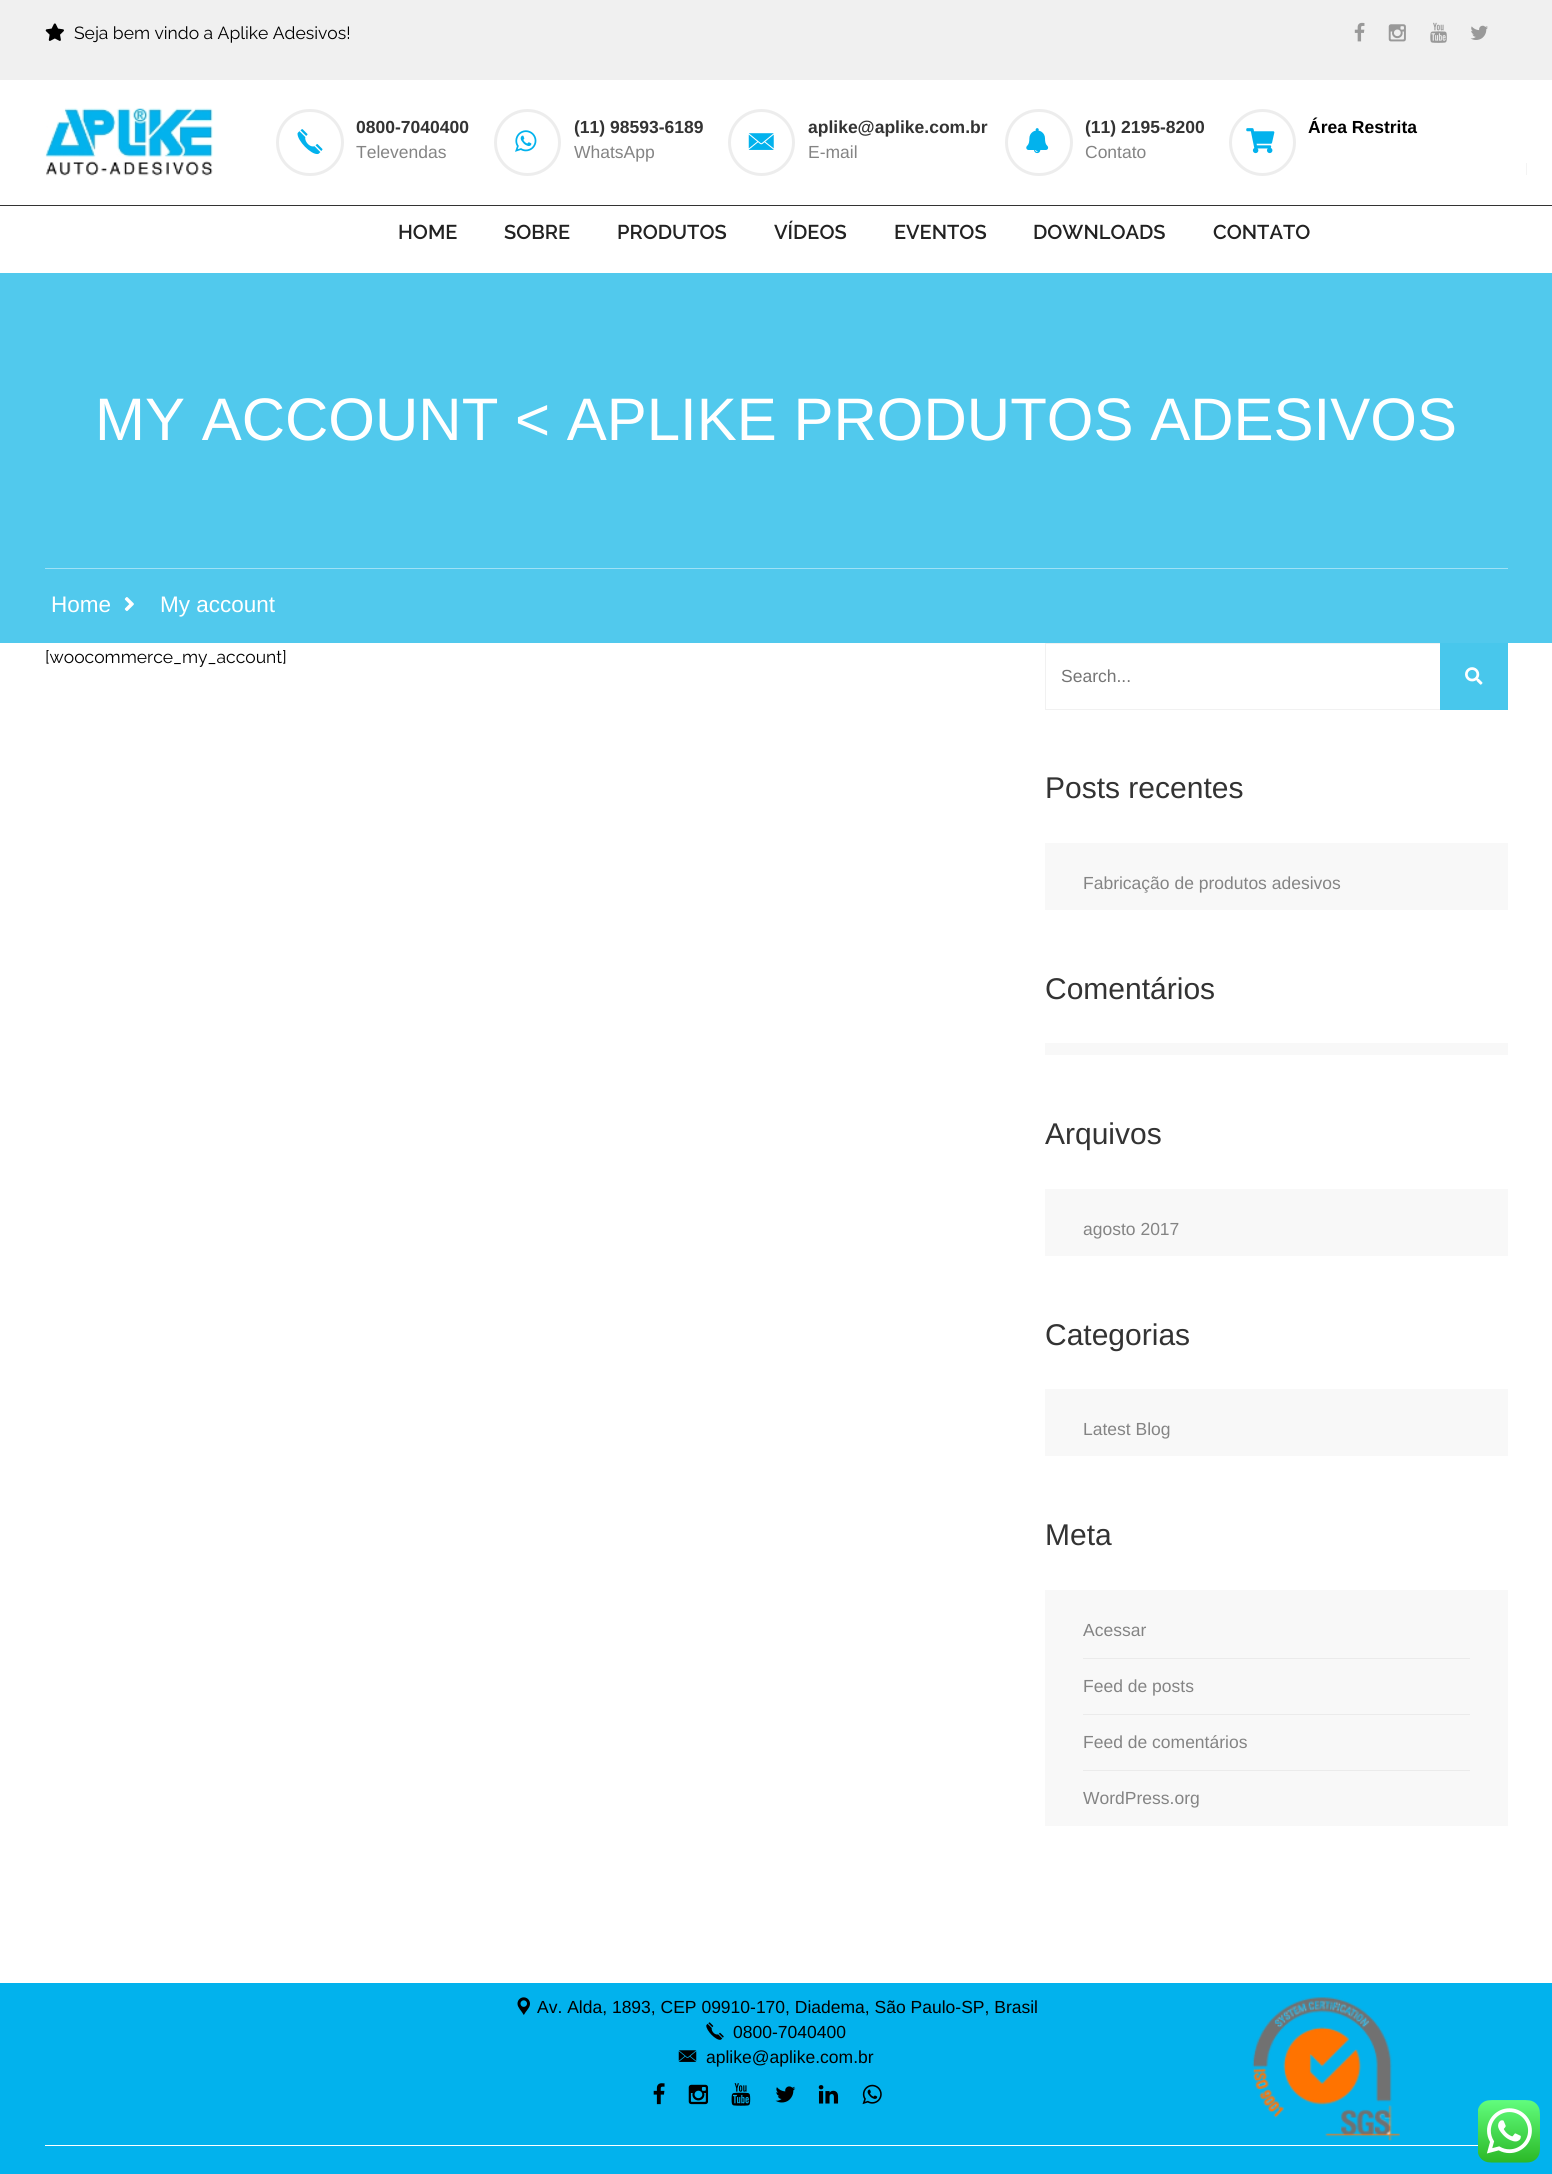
#include <cairo.h>
#include <math.h>
#include <stddef.h>


static void round_rect(cairo_t *cr, double x, double y, double w, double h, double r) {
    cairo_new_sub_path(cr);
    cairo_arc(cr, x + w - r, y + h - r, r, 0, M_PI / 2);
    cairo_arc(cr, x + r, y + h - r, r, M_PI / 2, M_PI);
    cairo_arc(cr, x + r, y + r, r, M_PI, 1.5 * M_PI);
    cairo_arc(cr, x + w - r, y + r, r, 1.5 * M_PI, 2 * M_PI);
    cairo_close_path(cr);
}

static void picture(cairo_t *cr, const char *path, double x, double y, double w, double h) {
    cairo_surface_t *image = cairo_image_surface_create_from_png(path);
    cairo_save(cr);
    cairo_set_source_surface(cr, image, x, y);
    cairo_rectangle(cr, x, y, w, h);
    cairo_fill(cr);
    cairo_restore(cr);
    cairo_surface_destroy(image);
}

int main(void) {
    cairo_surface_t *surface = cairo_image_surface_create(CAIRO_FORMAT_RGB24, 1552, 2174);
    cairo_t *cr = cairo_create(surface);
    cairo_font_options_t *options = cairo_font_options_create();
    cairo_font_options_set_hint_metrics(options, CAIRO_HINT_METRICS_OFF);
    cairo_font_options_set_hint_style(options, CAIRO_HINT_STYLE_NONE);
    cairo_set_font_options(cr, options);
    cairo_set_miter_limit(cr, 4);
    cairo_set_source_rgb(cr, 1, 1, 1);
    cairo_paint(cr);
    cairo_set_source_rgb(cr, 0.941, 0.941, 0.941);
    cairo_rectangle(cr, 0, 0, 1552, 80);
    cairo_fill(cr);
    picture(cr, "img1.png", 45, 23, 19, 18);
    cairo_select_font_face(cr, "Raleway", CAIRO_FONT_SLANT_NORMAL, CAIRO_FONT_WEIGHT_NORMAL);
    cairo_set_font_size(cr, 17.5);
    cairo_set_source_rgb(cr, 0, 0, 0);
    cairo_move_to(cr, 74, 39);
    cairo_show_text(cr, "Seja bem vindo a Aplike Adesivos!");
    picture(cr, "img2.png", 1354, 22, 11, 20);
    picture(cr, "img3.png", 1388, 24, 18, 18);
    picture(cr, "img4.png", 1430, 22, 17, 21);
    picture(cr, "img5.png", 1470, 25, 18, 15);
    picture(cr, "img6.png", 45, 108, 168, 68);
    round_rect(cr, 277.5, 110.5, 65, 64, 32);
    cairo_set_source_rgb(cr, 0.929, 0.929, 0.929);
    cairo_set_line_width(cr, 3);
    cairo_stroke(cr);
    picture(cr, "img7.png", 297, 129, 26, 26);
    cairo_select_font_face(cr, "Liberation Sans", CAIRO_FONT_SLANT_NORMAL, CAIRO_FONT_WEIGHT_BOLD);
    cairo_set_source_rgb(cr, 0.2, 0.2, 0.2);
    cairo_move_to(cr, 356, 133);
    cairo_show_text(cr, "0800-7040400");
    cairo_select_font_face(cr, "Liberation Sans", CAIRO_FONT_SLANT_NORMAL, CAIRO_FONT_WEIGHT_NORMAL);
    cairo_set_source_rgb(cr, 0.518, 0.518, 0.518);
    cairo_move_to(cr, 356, 158);
    cairo_show_text(cr, "Televendas");
    cairo_new_path(cr);
    cairo_arc(cr, 527.5, 142.5, 32, 0, 2 * M_PI);
    cairo_set_source_rgb(cr, 0.929, 0.929, 0.929);
    cairo_stroke(cr);
    picture(cr, "img8.png", 515, 130, 22, 22);
    cairo_select_font_face(cr, "Liberation Sans", CAIRO_FONT_SLANT_NORMAL, CAIRO_FONT_WEIGHT_BOLD);
    cairo_set_source_rgb(cr, 0.2, 0.2, 0.2);
    cairo_move_to(cr, 574, 133);
    cairo_show_text(cr, "(11) 98593-6189");
    cairo_select_font_face(cr, "Liberation Sans", CAIRO_FONT_SLANT_NORMAL, CAIRO_FONT_WEIGHT_NORMAL);
    cairo_set_source_rgb(cr, 0.518, 0.518, 0.518);
    cairo_move_to(cr, 574, 158);
    cairo_show_text(cr, "WhatsApp");
    cairo_new_path(cr);
    cairo_arc(cr, 761.5, 142.5, 32, 0, 2 * M_PI);
    cairo_set_source_rgb(cr, 0.929, 0.929, 0.929);
    cairo_stroke(cr);
    picture(cr, "img9.png", 748, 133, 26, 17);
    cairo_select_font_face(cr, "Liberation Sans", CAIRO_FONT_SLANT_NORMAL, CAIRO_FONT_WEIGHT_BOLD);
    cairo_set_source_rgb(cr, 0.2, 0.2, 0.2);
    cairo_move_to(cr, 808, 133);
    cairo_show_text(cr, "aplike@aplike.com.br");
    cairo_select_font_face(cr, "Liberation Sans", CAIRO_FONT_SLANT_NORMAL, CAIRO_FONT_WEIGHT_NORMAL);
    cairo_set_source_rgb(cr, 0.518, 0.518, 0.518);
    cairo_move_to(cr, 808, 158);
    cairo_show_text(cr, "E-mail");
    round_rect(cr, 1006.5, 110.5, 65, 64, 32);
    cairo_set_source_rgb(cr, 0.929, 0.929, 0.929);
    cairo_stroke(cr);
    picture(cr, "img10.png", 1026, 128, 23, 26);
    cairo_select_font_face(cr, "Liberation Sans", CAIRO_FONT_SLANT_NORMAL, CAIRO_FONT_WEIGHT_BOLD);
    cairo_set_source_rgb(cr, 0.2, 0.2, 0.2);
    cairo_move_to(cr, 1085, 133);
    cairo_show_text(cr, "(11) 2195-8200");
    cairo_select_font_face(cr, "Liberation Sans", CAIRO_FONT_SLANT_NORMAL, CAIRO_FONT_WEIGHT_NORMAL);
    cairo_set_source_rgb(cr, 0.518, 0.518, 0.518);
    cairo_move_to(cr, 1085, 158);
    cairo_show_text(cr, "Contato");
    cairo_new_path(cr);
    cairo_arc(cr, 1262.5, 142.5, 32, 0, 2 * M_PI);
    cairo_set_source_rgb(cr, 0.929, 0.929, 0.929);
    cairo_stroke(cr);
    picture(cr, "img11.png", 1246, 128, 29, 26);
    cairo_select_font_face(cr, "Liberation Sans", CAIRO_FONT_SLANT_NORMAL, CAIRO_FONT_WEIGHT_BOLD);
    cairo_set_source_rgb(cr, 0, 0, 0);
    cairo_move_to(cr, 1308, 133);
    cairo_show_text(cr, "Área Restrita");
    cairo_set_source_rgb(cr, 0.2, 0.2, 0.2);
    cairo_rectangle(cr, 0, 205, 1552, 1);
    cairo_fill(cr);
    cairo_set_source_rgb(cr, 0.957, 0.957, 0.957);
    cairo_rectangle(cr, 1526, 163, 1, 12);
    cairo_fill(cr);
    cairo_select_font_face(cr, "Raleway SemiBold", CAIRO_FONT_SLANT_NORMAL, CAIRO_FONT_WEIGHT_NORMAL);
    cairo_set_font_size(cr, 20);
    cairo_set_source_rgb(cr, 0.133, 0.133, 0.133);
    cairo_move_to(cr, 398, 239);
    cairo_show_text(cr, "HOME");
    cairo_move_to(cr, 504, 239);
    cairo_show_text(cr, "SOBRE");
    cairo_move_to(cr, 617, 239);
    cairo_show_text(cr, "PRODUTOS");
    cairo_move_to(cr, 774, 239);
    cairo_show_text(cr, "VÍDEOS");
    cairo_move_to(cr, 894, 239);
    cairo_show_text(cr, "EVENTOS");
    cairo_move_to(cr, 1033, 239);
    cairo_show_text(cr, "DOWNLOADS");
    cairo_move_to(cr, 1213, 239);
    cairo_show_text(cr, "CONTATO");
    cairo_set_source_rgb(cr, 0.318, 0.788, 0.929);
    cairo_rectangle(cr, 0, 273, 1552, 370);
    cairo_fill(cr);
    cairo_select_font_face(cr, "Liberation Sans", CAIRO_FONT_SLANT_NORMAL, CAIRO_FONT_WEIGHT_NORMAL);
    cairo_set_font_size(cr, 60);
    cairo_set_source_rgb(cr, 1, 1, 1);
    cairo_move_to(cr, 95, 440);
    cairo_show_text(cr, "MY ACCOUNT < APLIKE PRODUTOS ADESIVOS");
    cairo_set_source_rgb(cr, 0.62, 0.882, 0.961);
    cairo_rectangle(cr, 45, 568, 1463, 1);
    cairo_fill(cr);
    cairo_set_font_size(cr, 22.5);
    cairo_set_source_rgb(cr, 1, 1, 1);
    cairo_move_to(cr, 51, 612);
    cairo_show_text(cr, "Home");
    picture(cr, "img12.png", 124, 597, 10, 15);
    cairo_move_to(cr, 160, 612);
    cairo_show_text(cr, "My account");
    cairo_select_font_face(cr, "Raleway", CAIRO_FONT_SLANT_NORMAL, CAIRO_FONT_WEIGHT_NORMAL);
    cairo_set_font_size(cr, 17.5);
    cairo_set_source_rgb(cr, 0, 0, 0);
    cairo_move_to(cr, 45, 663);
    cairo_show_text(cr, "[woocommerce_my_account]");
    cairo_rectangle(cr, 1045.5, 643.5, 462, 66);
    cairo_set_source_rgb(cr, 0.945, 0.945, 0.945);
    cairo_set_line_width(cr, 1);
    cairo_stroke(cr);
    cairo_select_font_face(cr, "Liberation Sans", CAIRO_FONT_SLANT_NORMAL, CAIRO_FONT_WEIGHT_NORMAL);
    cairo_set_source_rgb(cr, 0.459, 0.459, 0.459);
    cairo_move_to(cr, 1061, 682);
    cairo_show_text(cr, "Search...");
    cairo_set_source_rgb(cr, 0.282, 0.78, 0.925);
    cairo_rectangle(cr, 1440, 643, 68, 67);
    cairo_fill(cr);
    picture(cr, "img13.png", 1465, 667, 18, 18);
    cairo_set_font_size(cr, 30);
    cairo_set_source_rgb(cr, 0.2, 0.2, 0.2);
    cairo_move_to(cr, 1045, 798);
    cairo_show_text(cr, "Posts recentes");
    cairo_set_source_rgb(cr, 0.969, 0.969, 0.969);
    cairo_rectangle(cr, 1045, 843, 463, 67);
    cairo_fill(cr);
    cairo_set_font_size(cr, 17.5);
    cairo_set_source_rgb(cr, 0.518, 0.518, 0.518);
    cairo_move_to(cr, 1083, 889);
    cairo_show_text(cr, "Fabricação de produtos adesivos");
    cairo_set_font_size(cr, 30);
    cairo_set_source_rgb(cr, 0.2, 0.2, 0.2);
    cairo_move_to(cr, 1045, 999);
    cairo_show_text(cr, "Comentários");
    cairo_set_source_rgb(cr, 0.969, 0.969, 0.969);
    cairo_rectangle(cr, 1045, 1043, 463, 12);
    cairo_fill(cr);
    cairo_set_source_rgb(cr, 0.2, 0.2, 0.2);
    cairo_move_to(cr, 1045, 1144);
    cairo_show_text(cr, "Arquivos");
    cairo_set_source_rgb(cr, 0.969, 0.969, 0.969);
    cairo_rectangle(cr, 1045, 1189, 463, 67);
    cairo_fill(cr);
    cairo_set_font_size(cr, 17.5);
    cairo_set_source_rgb(cr, 0.518, 0.518, 0.518);
    cairo_move_to(cr, 1083, 1235);
    cairo_show_text(cr, "agosto 2017");
    cairo_set_font_size(cr, 30);
    cairo_set_source_rgb(cr, 0.2, 0.2, 0.2);
    cairo_move_to(cr, 1045, 1345);
    cairo_show_text(cr, "Categorias");
    cairo_set_source_rgb(cr, 0.969, 0.969, 0.969);
    cairo_rectangle(cr, 1045, 1389, 463, 67);
    cairo_fill(cr);
    cairo_set_font_size(cr, 17.5);
    cairo_set_source_rgb(cr, 0.518, 0.518, 0.518);
    cairo_move_to(cr, 1083, 1435);
    cairo_show_text(cr, "Latest Blog");
    cairo_set_font_size(cr, 30);
    cairo_set_source_rgb(cr, 0.2, 0.2, 0.2);
    cairo_move_to(cr, 1045, 1545);
    cairo_show_text(cr, "Meta");
    cairo_set_source_rgb(cr, 0.969, 0.969, 0.969);
    cairo_rectangle(cr, 1045, 1590, 463, 236);
    cairo_fill(cr);
    cairo_set_source_rgb(cr, 0.918, 0.918, 0.918);
    cairo_rectangle(cr, 1083, 1658, 387, 1);
    cairo_fill(cr);
    cairo_set_font_size(cr, 17.5);
    cairo_set_source_rgb(cr, 0.518, 0.518, 0.518);
    cairo_move_to(cr, 1083, 1636);
    cairo_show_text(cr, "Acessar");
    cairo_set_source_rgb(cr, 0.918, 0.918, 0.918);
    cairo_rectangle(cr, 1083, 1714, 387, 1);
    cairo_fill(cr);
    cairo_set_source_rgb(cr, 0.518, 0.518, 0.518);
    cairo_move_to(cr, 1083, 1692);
    cairo_show_text(cr, "Feed de posts");
    cairo_set_source_rgb(cr, 0.918, 0.918, 0.918);
    cairo_rectangle(cr, 1083, 1770, 387, 1);
    cairo_fill(cr);
    cairo_set_source_rgb(cr, 0.518, 0.518, 0.518);
    cairo_move_to(cr, 1083, 1748);
    cairo_show_text(cr, "Feed de comentários");
    cairo_move_to(cr, 1083, 1804);
    cairo_show_text(cr, "WordPress.org");
    cairo_set_source_rgb(cr, 0.008, 0.698, 0.929);
    cairo_rectangle(cr, 0, 1983, 1552, 191);
    cairo_fill(cr);
    cairo_set_source_rgb(cr, 1, 1, 1);
    cairo_rectangle(cr, 45, 2145, 1433, 1);
    cairo_fill(cr);
    picture(cr, "img14.png", 517, 1997, 13, 18);
    cairo_set_source_rgb(cr, 0, 0, 0);
    cairo_move_to(cr, 537, 2013);
    cairo_show_text(cr, "Av. Alda, 1893, CEP 09910-170, Diadema, São Paulo-SP, Brasil");
    picture(cr, "img15.png", 706, 2022, 18, 18);
    cairo_move_to(cr, 733, 2038);
    cairo_show_text(cr, "0800-7040400");
    picture(cr, "img16.png", 678, 2050, 19, 12);
    cairo_move_to(cr, 706, 2063);
    cairo_show_text(cr, "aplike@aplike.com.br");
    picture(cr, "img17.png", 653, 2083, 12, 22);
    picture(cr, "img18.png", 688, 2084, 21, 21);
    picture(cr, "img19.png", 731, 2083, 20, 23);
    picture(cr, "img20.png", 775, 2086, 21, 17);
    picture(cr, "img21.png", 818, 2085, 21, 19);
    picture(cr, "img22.png", 862, 2084, 20, 21);
    picture(cr, "img23.png", 1252, 1997, 148, 144);
    picture(cr, "img24.png", 1478, 2100, 62, 63);
    cairo_surface_write_to_png(surface, "page.png");
    cairo_font_options_destroy(options);
    cairo_destroy(cr);
    cairo_surface_destroy(surface);
    return 0;
}
